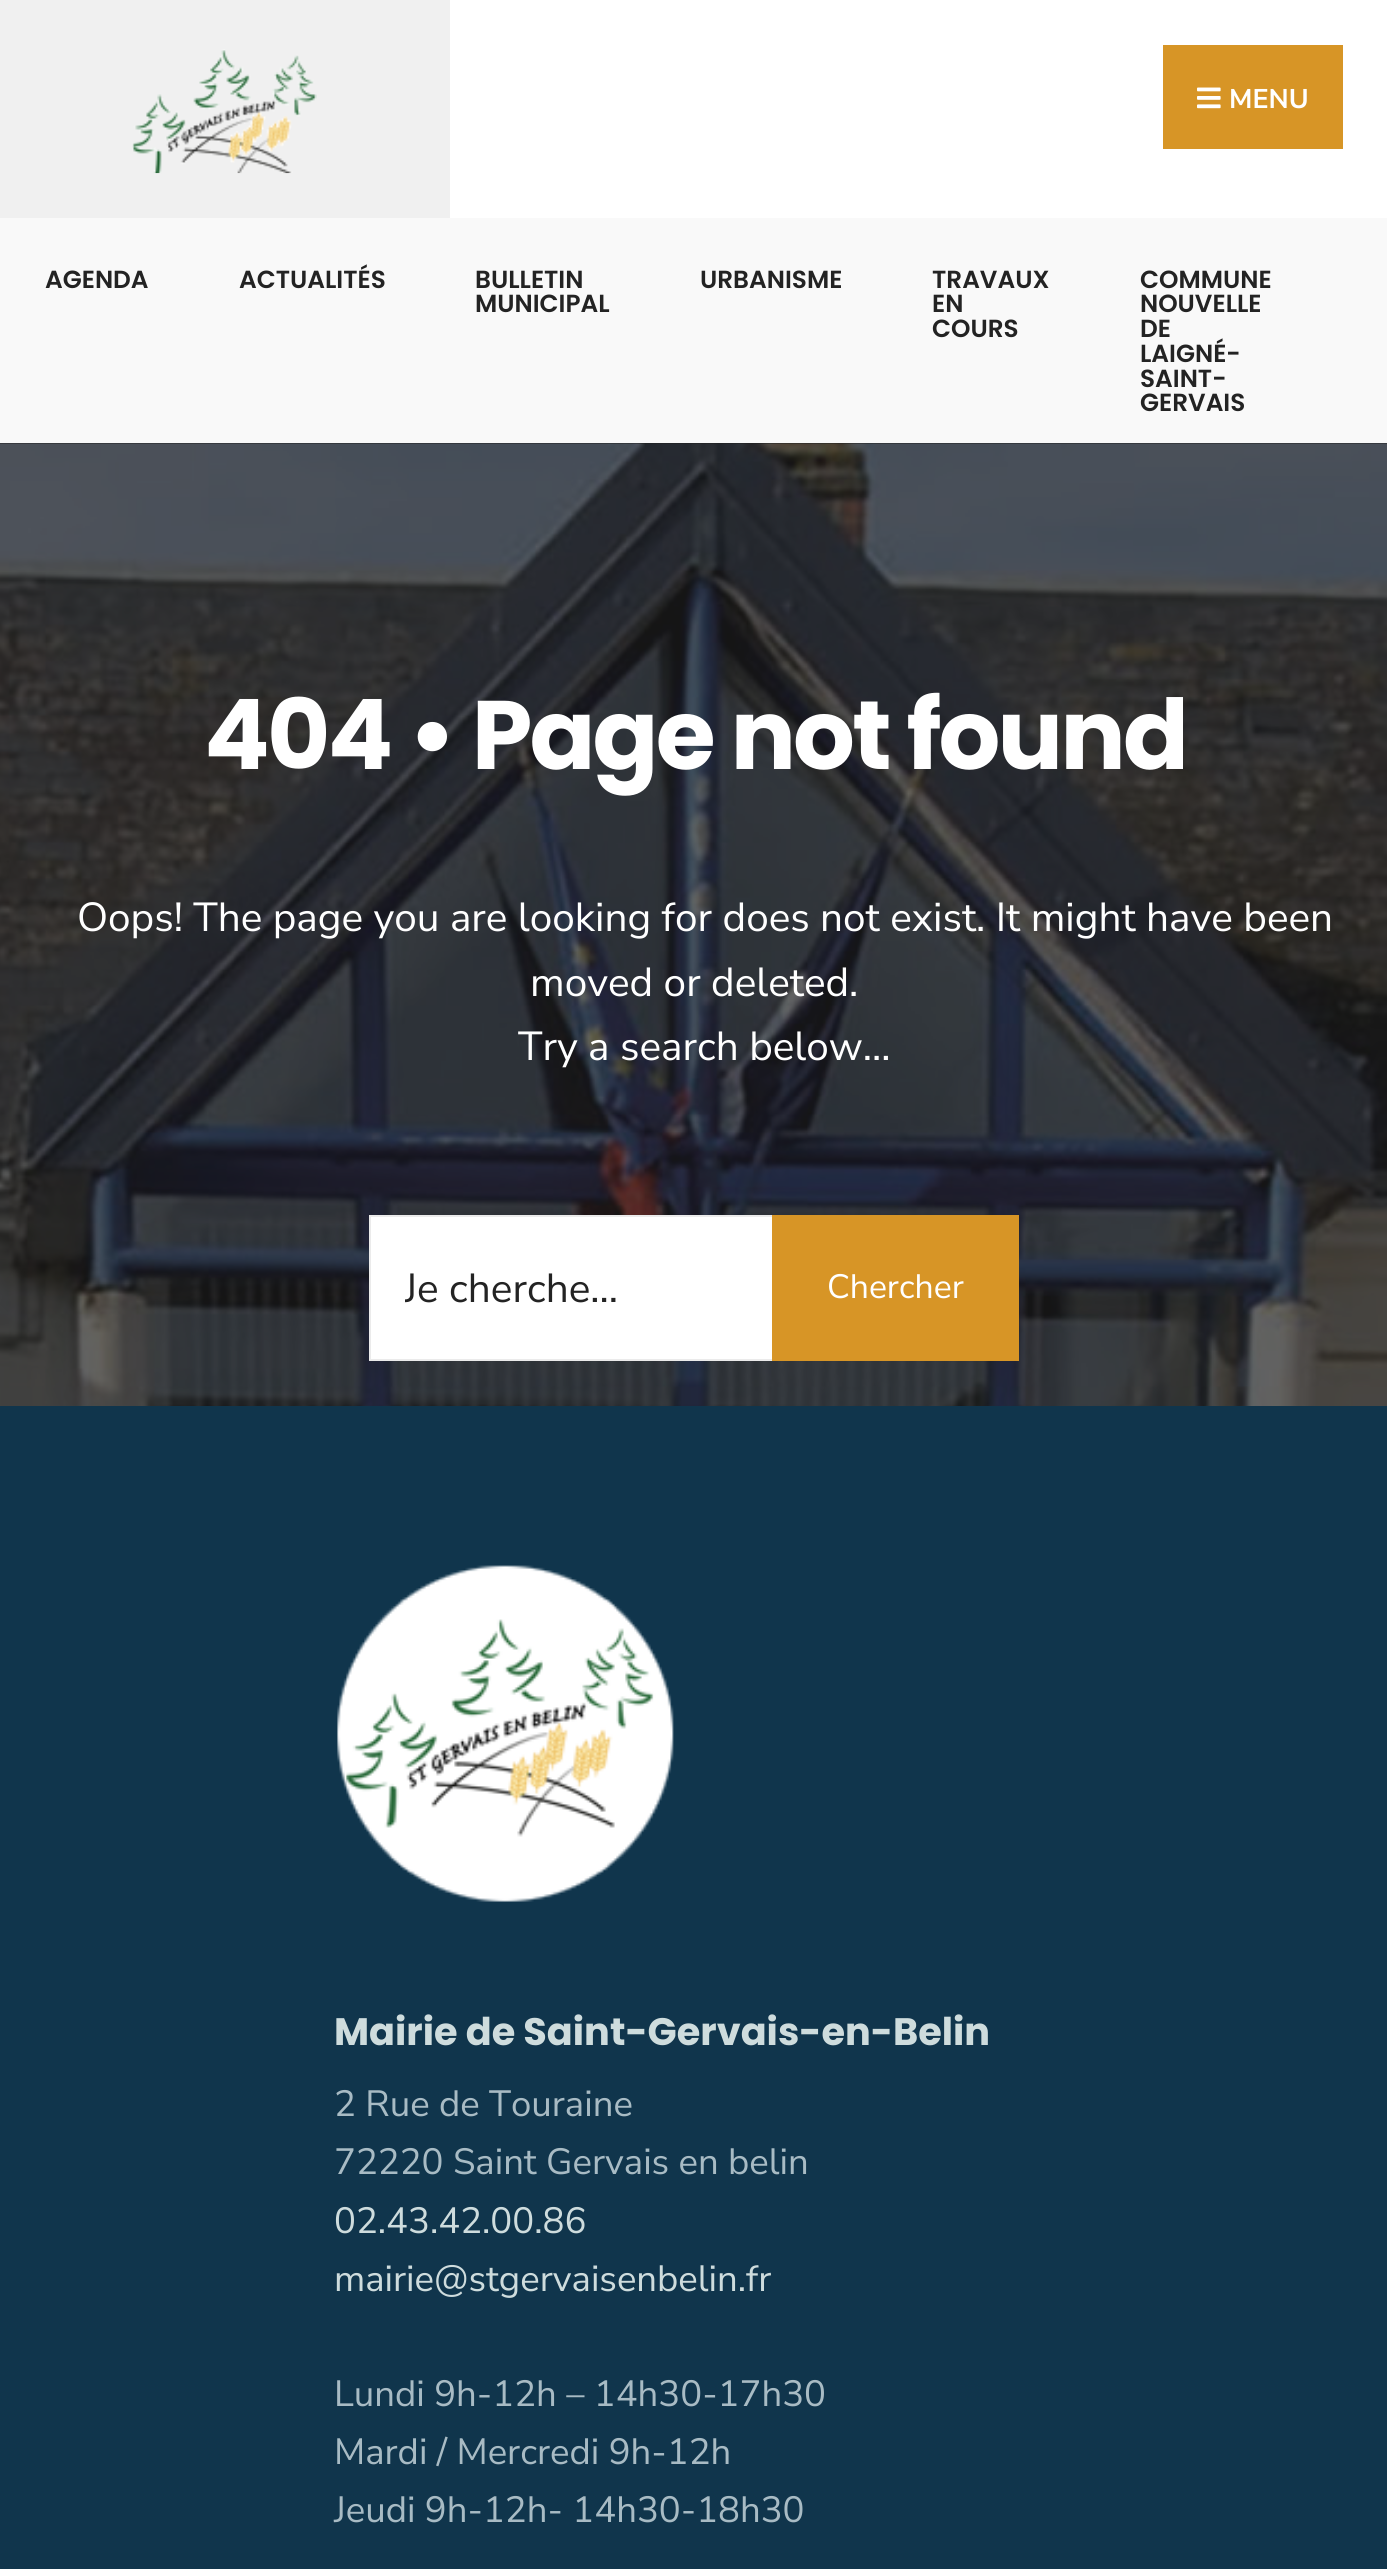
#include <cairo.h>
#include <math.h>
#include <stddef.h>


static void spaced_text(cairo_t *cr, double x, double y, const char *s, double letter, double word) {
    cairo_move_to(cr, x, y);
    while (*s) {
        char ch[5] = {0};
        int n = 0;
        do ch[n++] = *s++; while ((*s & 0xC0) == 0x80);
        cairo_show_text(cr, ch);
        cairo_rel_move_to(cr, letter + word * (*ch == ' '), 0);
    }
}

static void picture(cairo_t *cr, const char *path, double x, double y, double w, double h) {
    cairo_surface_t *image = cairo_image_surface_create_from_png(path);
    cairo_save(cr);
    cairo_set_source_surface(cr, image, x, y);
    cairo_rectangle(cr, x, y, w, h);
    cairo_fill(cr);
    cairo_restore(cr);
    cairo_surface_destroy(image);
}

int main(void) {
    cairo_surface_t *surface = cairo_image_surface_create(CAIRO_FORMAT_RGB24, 1387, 2569);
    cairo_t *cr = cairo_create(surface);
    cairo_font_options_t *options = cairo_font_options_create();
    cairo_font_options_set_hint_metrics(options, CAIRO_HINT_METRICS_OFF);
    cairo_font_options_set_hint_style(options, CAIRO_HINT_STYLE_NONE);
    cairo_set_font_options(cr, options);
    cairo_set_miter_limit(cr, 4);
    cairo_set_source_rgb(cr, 0.118, 0.118, 0.118);
    cairo_paint(cr);
    cairo_set_source_rgb(cr, 1, 1, 1);
    cairo_rectangle(cr, 450, 0, 937, 218);
    cairo_fill(cr);
    cairo_set_source_rgb(cr, 0.941, 0.941, 0.941);
    cairo_rectangle(cr, 0, 0, 450, 218);
    cairo_fill(cr);
    picture(cr, "img1.png", 132, 49, 185, 125);
    cairo_set_source_rgb(cr, 0.843, 0.584, 0.149);
    cairo_rectangle(cr, 1163, 45, 180, 104);
    cairo_fill(cr);
    picture(cr, "img2.png", 1197, 87, 24, 22);
    cairo_select_font_face(cr, "Nunito Sans", CAIRO_FONT_SLANT_NORMAL, CAIRO_FONT_WEIGHT_BOLD);
    cairo_set_font_size(cr, 27);
    cairo_set_source_rgb(cr, 1, 1, 1);
    cairo_move_to(cr, 1229, 108);
    cairo_show_text(cr, "MENU");
    cairo_set_source_rgb(cr, 0.976, 0.976, 0.976);
    cairo_rectangle(cr, 0, 218, 1387, 225);
    cairo_fill(cr);
    cairo_select_font_face(cr, "Poppins SemiBold", CAIRO_FONT_SLANT_NORMAL, CAIRO_FONT_WEIGHT_NORMAL);
    cairo_set_font_size(cr, 24.75);
    cairo_set_source_rgb(cr, 0.137, 0.137, 0.137);
    cairo_move_to(cr, 45, 288);
    cairo_show_text(cr, "AGENDA");
    cairo_move_to(cr, 239, 288);
    cairo_show_text(cr, "ACTUALITÉS");
    cairo_move_to(cr, 475, 288);
    cairo_show_text(cr, "BULLETIN");
    cairo_move_to(cr, 475, 312);
    cairo_show_text(cr, "MUNICIPAL");
    cairo_move_to(cr, 700, 288);
    cairo_show_text(cr, "URBANISME");
    cairo_move_to(cr, 932, 288);
    cairo_show_text(cr, "TRAVAUX");
    cairo_move_to(cr, 932, 312);
    cairo_show_text(cr, "EN");
    cairo_move_to(cr, 932, 337);
    cairo_show_text(cr, "COURS");
    cairo_move_to(cr, 1140, 288);
    cairo_show_text(cr, "COMMUNE");
    cairo_move_to(cr, 1140, 312);
    cairo_show_text(cr, "NOUVELLE");
    cairo_move_to(cr, 1140, 337);
    cairo_show_text(cr, "DE");
    cairo_move_to(cr, 1140, 362);
    cairo_show_text(cr, "LAIGNÉ-");
    cairo_move_to(cr, 1140, 387);
    cairo_show_text(cr, "SAINT-");
    cairo_move_to(cr, 1140, 411);
    cairo_show_text(cr, "GERVAIS");
    picture(cr, "img3.png", 0, 443, 1387, 963);
    cairo_select_font_face(cr, "Poppins", CAIRO_FONT_SLANT_NORMAL, CAIRO_FONT_WEIGHT_BOLD);
    cairo_set_font_size(cr, 97.25);
    cairo_set_source_rgb(cr, 1, 1, 1);
    spaced_text(cr, 204, 769, "404 • Page not found", -2.9, 0);
    cairo_select_font_face(cr, "Nunito Sans", CAIRO_FONT_SLANT_NORMAL, CAIRO_FONT_WEIGHT_NORMAL);
    cairo_set_font_size(cr, 40.5);
    cairo_move_to(cr, 77, 931);
    cairo_show_text(cr, "Oops! The page you are looking for does not exist. It might have been");
    cairo_move_to(cr, 530, 996);
    cairo_show_text(cr, "moved or deleted.");
    cairo_move_to(cr, 518, 1060);
    cairo_show_text(cr, "Try a search below...");
    cairo_rectangle(cr, 371, 1217, 401, 142);
    cairo_fill(cr);
    cairo_rectangle(cr, 370, 1216, 648, 144);
    cairo_set_source_rgb(cr, 0.918, 0.918, 0.918);
    cairo_stroke(cr);
    cairo_save(cr);
    cairo_rectangle(cr, 405, 1262, 578, 54);
    cairo_clip(cr);
    cairo_set_source_rgb(cr, 0.137, 0.137, 0.137);
    cairo_move_to(cr, 404, 1302);
    cairo_show_text(cr, "Je cherche...");
    cairo_restore(cr);
    cairo_set_source_rgb(cr, 0.843, 0.584, 0.149);
    cairo_rectangle(cr, 772, 1215, 247, 146);
    cairo_fill(cr);
    cairo_set_font_size(cr, 33.75);
    cairo_set_source_rgb(cr, 1, 1, 1);
    cairo_move_to(cr, 827, 1298);
    cairo_show_text(cr, "Chercher");
    cairo_set_source_rgb(cr, 0.063, 0.208, 0.298);
    cairo_rectangle(cr, 0, 1406, 1387, 1163);
    cairo_fill(cr);
    picture(cr, "img4.png", 337, 1565, 337, 337);
    cairo_select_font_face(cr, "Poppins", CAIRO_FONT_SLANT_NORMAL, CAIRO_FONT_WEIGHT_BOLD);
    cairo_set_font_size(cr, 38.25);
    cairo_set_source_rgb(cr, 0.808, 0.863, 0.867);
    cairo_move_to(cr, 334, 2045);
    cairo_show_text(cr, "Mairie de Saint-Gervais-en-Belin");
    cairo_select_font_face(cr, "Nunito Sans", CAIRO_FONT_SLANT_NORMAL, CAIRO_FONT_WEIGHT_NORMAL);
    cairo_set_font_size(cr, 36.5);
    cairo_set_source_rgb(cr, 0.659, 0.733, 0.769);
    cairo_move_to(cr, 334, 2116);
    cairo_show_text(cr, "2 Rue de Touraine");
    cairo_move_to(cr, 334, 2174);
    cairo_show_text(cr, "72220 Saint Gervais en belin");
    cairo_set_source_rgb(cr, 0.808, 0.863, 0.867);
    cairo_move_to(cr, 334, 2233);
    cairo_show_text(cr, "02.43.42.00.86");
    cairo_move_to(cr, 334, 2291);
    cairo_show_text(cr, "mairie@stgervaisenbelin.fr");
    cairo_set_source_rgb(cr, 0.659, 0.733, 0.769);
    cairo_move_to(cr, 334, 2406);
    cairo_show_text(cr, "Lundi 9h-12h – 14h30-17h30");
    cairo_move_to(cr, 334, 2464);
    cairo_show_text(cr, "Mardi / Mercredi 9h-12h");
    cairo_move_to(cr, 334, 2522);
    cairo_show_text(cr, "Jeudi 9h-12h- 14h30-18h30");
    cairo_surface_write_to_png(surface, "page.png");
    cairo_font_options_destroy(options);
    cairo_destroy(cr);
    cairo_surface_destroy(surface);
    return 0;
}
